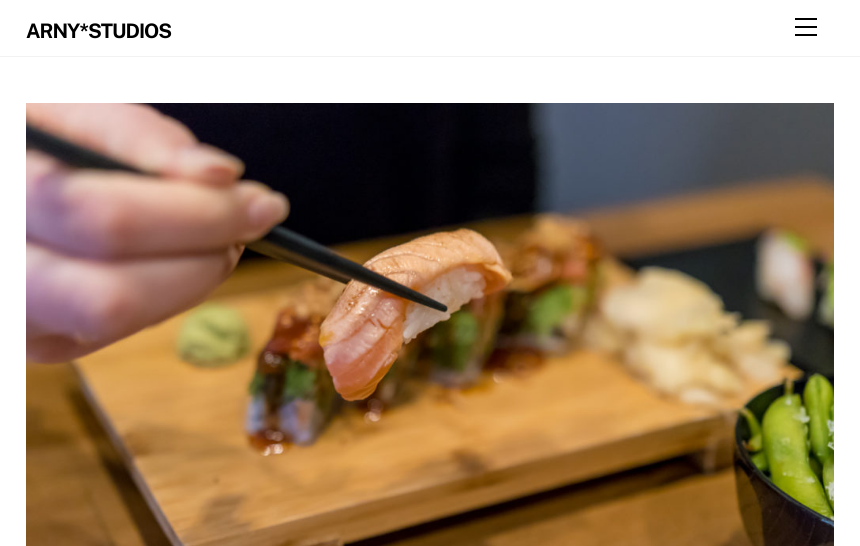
#include <cairo.h>
#include <math.h>
#include <stddef.h>


static void spaced_text(cairo_t *cr, double x, double y, const char *s, double letter, double word) {
    cairo_move_to(cr, x, y);
    while (*s) {
        char ch[5] = {0};
        int n = 0;
        do ch[n++] = *s++; while ((*s & 0xC0) == 0x80);
        cairo_show_text(cr, ch);
        cairo_rel_move_to(cr, letter + word * (*ch == ' '), 0);
    }
}

static void picture(cairo_t *cr, const char *path, double x, double y, double w, double h) {
    cairo_surface_t *image = cairo_image_surface_create_from_png(path);
    cairo_save(cr);
    cairo_set_source_surface(cr, image, x, y);
    cairo_rectangle(cr, x, y, w, h);
    cairo_fill(cr);
    cairo_restore(cr);
    cairo_surface_destroy(image);
}

int main(void) {
    cairo_surface_t *surface = cairo_image_surface_create(CAIRO_FORMAT_RGB24, 860, 546);
    cairo_t *cr = cairo_create(surface);
    cairo_font_options_t *options = cairo_font_options_create();
    cairo_font_options_set_hint_metrics(options, CAIRO_HINT_METRICS_OFF);
    cairo_font_options_set_hint_style(options, CAIRO_HINT_STYLE_NONE);
    cairo_set_font_options(cr, options);
    cairo_set_miter_limit(cr, 4);
    cairo_set_source_rgb(cr, 1, 1, 1);
    cairo_paint(cr);
    cairo_set_source_rgb(cr, 0.949, 0.949, 0.949);
    cairo_rectangle(cr, 0, 56, 860, 1);
    cairo_fill(cr);
    cairo_select_font_face(cr, "Public Sans", CAIRO_FONT_SLANT_NORMAL, CAIRO_FONT_WEIGHT_BOLD);
    cairo_set_font_size(cr, 20);
    cairo_set_source_rgb(cr, 0, 0, 0);
    spaced_text(cr, 26, 38, "ARNY*STUDIOS", -1, 0);
    cairo_rectangle(cr, 795, 34, 22, 2);
    cairo_fill(cr);
    cairo_rectangle(cr, 795, 18, 22, 2);
    cairo_fill(cr);
    cairo_rectangle(cr, 795, 26, 22, 2);
    cairo_fill(cr);
    picture(cr, "img1.png", 26, 103, 808, 443);
    cairo_surface_write_to_png(surface, "page.png");
    cairo_font_options_destroy(options);
    cairo_destroy(cr);
    cairo_surface_destroy(surface);
    return 0;
}
